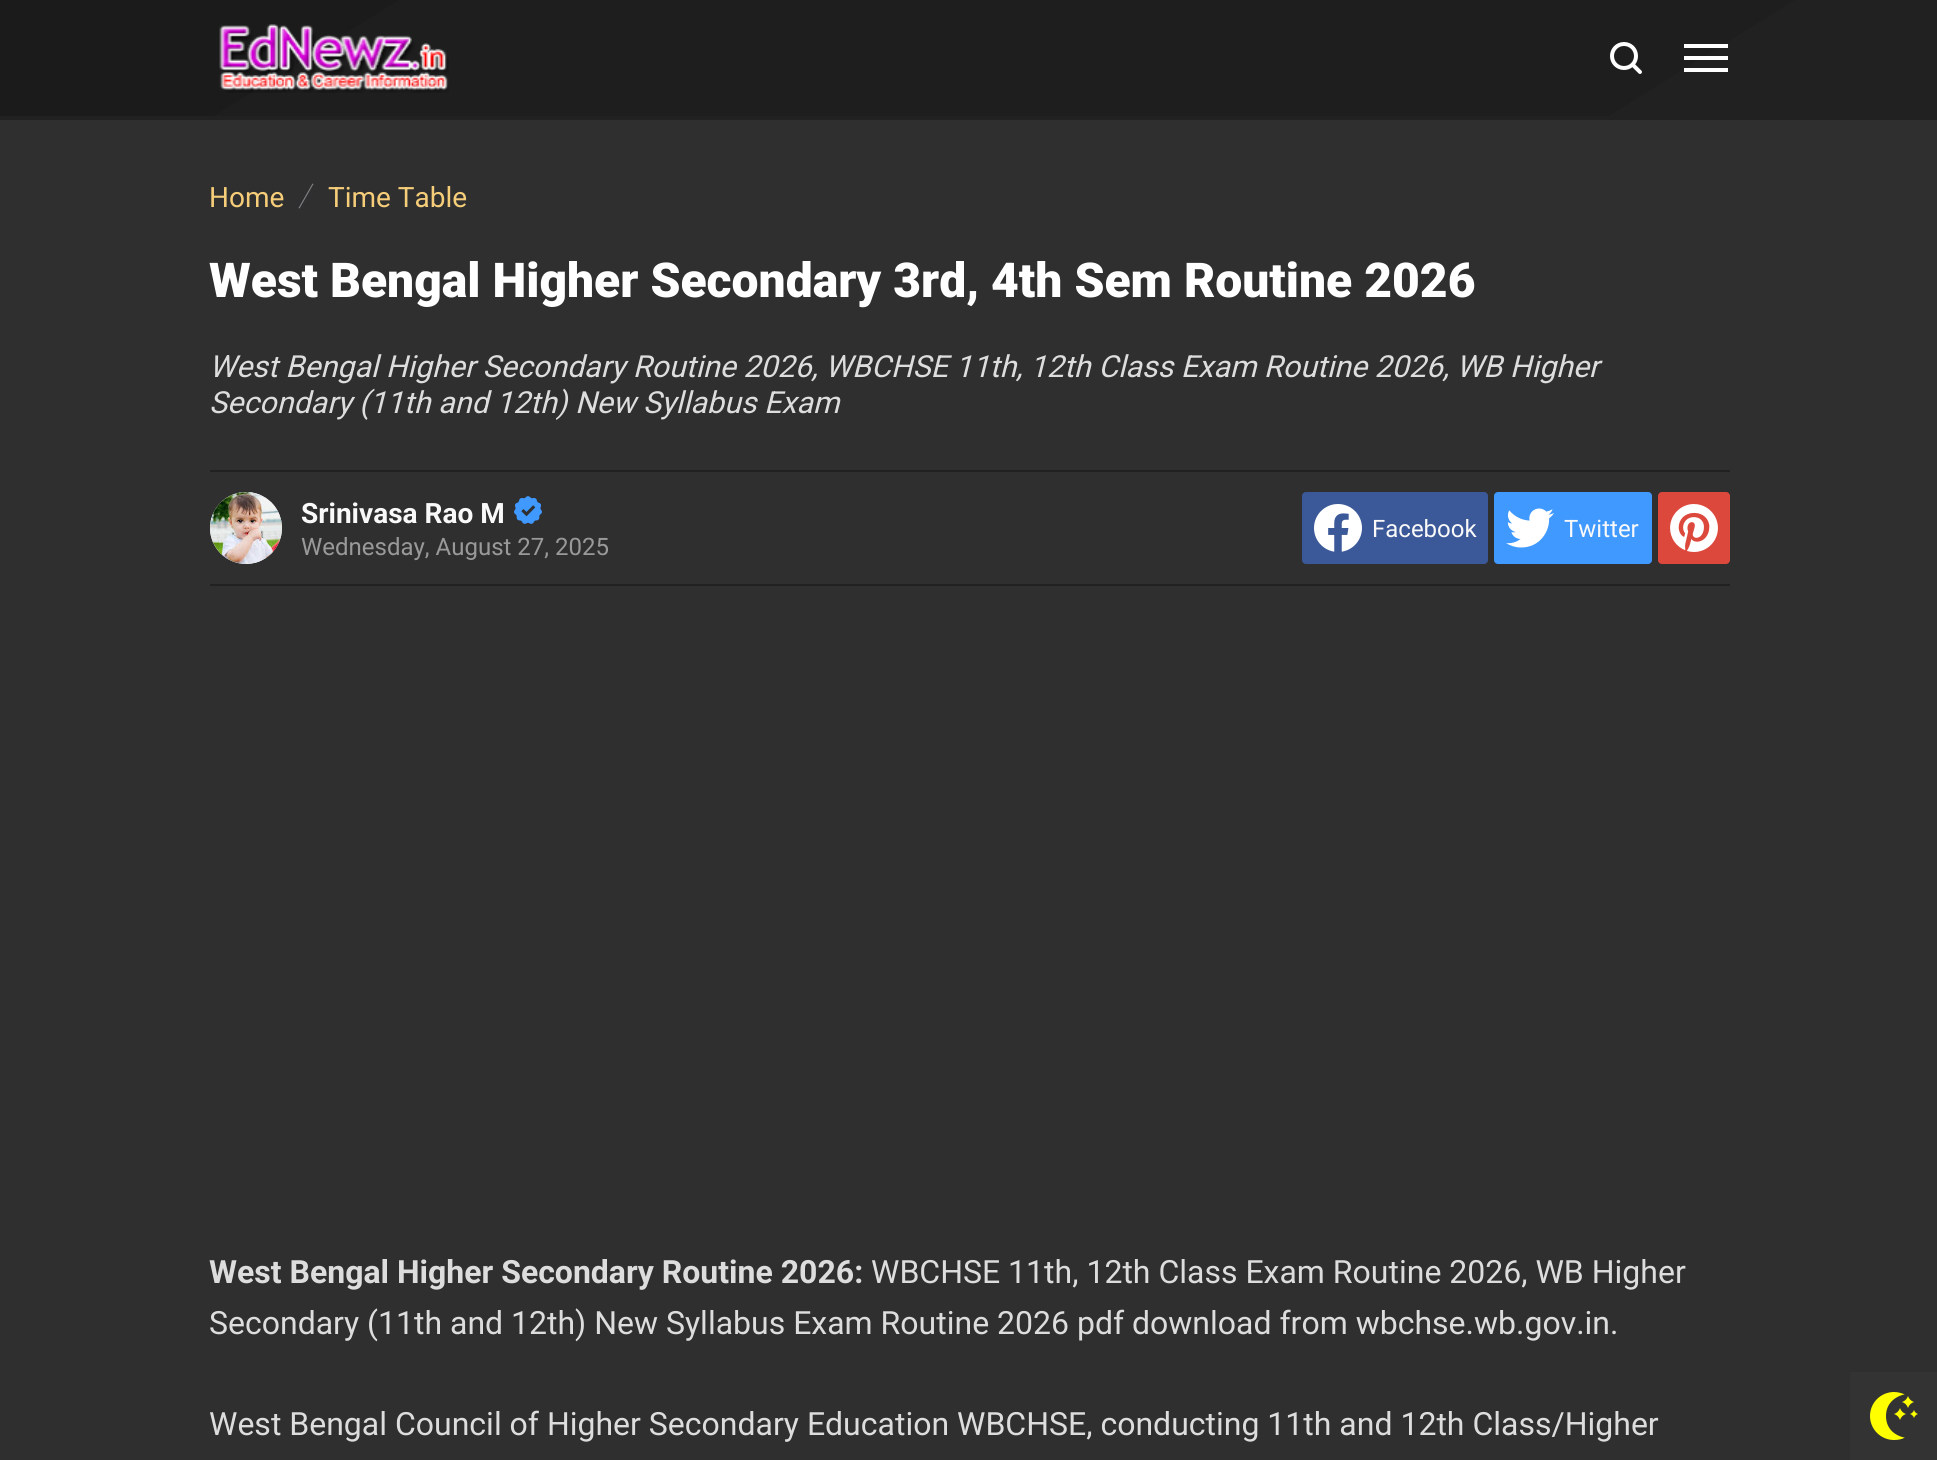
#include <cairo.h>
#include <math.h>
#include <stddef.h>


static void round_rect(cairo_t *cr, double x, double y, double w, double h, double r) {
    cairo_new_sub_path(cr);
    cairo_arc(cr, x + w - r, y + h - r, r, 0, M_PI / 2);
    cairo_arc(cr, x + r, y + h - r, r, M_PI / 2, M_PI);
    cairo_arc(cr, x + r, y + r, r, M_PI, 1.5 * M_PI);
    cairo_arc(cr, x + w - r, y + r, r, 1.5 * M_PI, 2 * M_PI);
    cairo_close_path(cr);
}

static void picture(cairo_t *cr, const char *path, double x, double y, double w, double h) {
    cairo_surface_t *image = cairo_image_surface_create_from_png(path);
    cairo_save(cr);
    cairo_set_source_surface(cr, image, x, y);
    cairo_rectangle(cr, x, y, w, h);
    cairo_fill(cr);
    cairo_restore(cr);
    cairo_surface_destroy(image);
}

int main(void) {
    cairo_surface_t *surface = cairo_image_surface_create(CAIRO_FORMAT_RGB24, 1937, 1460);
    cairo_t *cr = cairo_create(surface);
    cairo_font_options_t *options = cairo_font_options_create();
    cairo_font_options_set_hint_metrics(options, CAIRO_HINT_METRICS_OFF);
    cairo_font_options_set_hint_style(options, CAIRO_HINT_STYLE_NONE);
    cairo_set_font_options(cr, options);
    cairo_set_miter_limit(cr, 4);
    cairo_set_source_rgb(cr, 0.184, 0.184, 0.184);
    cairo_paint(cr);
    cairo_set_source_rgb(cr, 0.129, 0.129, 0.129);
    cairo_rectangle(cr, 0, 0, 1937, 120);
    cairo_fill(cr);
    cairo_set_source_rgb(cr, 0.118, 0.118, 0.118);
    cairo_new_path(cr);
    cairo_move_to(cr, -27, 0);
    cairo_line_to(cr, 399, 0);
    cairo_line_to(cr, 214, 116);
    cairo_line_to(cr, -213, 116);
    cairo_close_path(cr);
    cairo_fill(cr);
    cairo_set_source_rgba(cr, 0, 0, 0, 0.1);
    cairo_new_path(cr);
    cairo_move_to(cr, -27, 0);
    cairo_line_to(cr, 1795, 0);
    cairo_line_to(cr, 1609, 116);
    cairo_line_to(cr, -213, 116);
    cairo_close_path(cr);
    cairo_fill(cr);
    picture(cr, "img1.png", 219, 24, 230, 69);
    picture(cr, "img2.png", 1610, 42, 32, 32);
    cairo_set_source_rgb(cr, 1, 1, 1);
    cairo_new_path(cr);
    cairo_move_to(cr, 1684, 68);
    cairo_line_to(cr, 1728, 68);
    cairo_line_to(cr, 1728, 72);
    cairo_line_to(cr, 1684, 72);
    cairo_close_path(cr);
    cairo_move_to(cr, 1684, 44);
    cairo_line_to(cr, 1684, 48);
    cairo_line_to(cr, 1728, 48);
    cairo_line_to(cr, 1728, 44);
    cairo_close_path(cr);
    cairo_move_to(cr, 1684, 60);
    cairo_line_to(cr, 1728, 60);
    cairo_line_to(cr, 1728, 56);
    cairo_line_to(cr, 1684, 56);
    cairo_close_path(cr);
    cairo_fill(cr);
    cairo_set_source_rgb(cr, 0.502, 0.51, 0.522);
    cairo_new_path(cr);
    cairo_move_to(cr, 312.5, 183.5);
    cairo_line_to(cr, 313.5, 184);
    cairo_line_to(cr, 299.5, 208.5);
    cairo_line_to(cr, 298.5, 208);
    cairo_close_path(cr);
    cairo_fill(cr);
    cairo_select_font_face(cr, "Roboto", CAIRO_FONT_SLANT_NORMAL, CAIRO_FONT_WEIGHT_NORMAL);
    cairo_set_font_size(cr, 28);
    cairo_set_source_rgb(cr, 0.961, 0.804, 0.475);
    cairo_move_to(cr, 209, 207);
    cairo_show_text(cr, "Home");
    cairo_move_to(cr, 328, 207);
    cairo_show_text(cr, "Time Table");
    cairo_select_font_face(cr, "Roboto Black", CAIRO_FONT_SLANT_NORMAL, CAIRO_FONT_WEIGHT_NORMAL);
    cairo_set_font_size(cr, 48);
    cairo_set_source_rgb(cr, 1, 1, 1);
    cairo_move_to(cr, 209, 297);
    cairo_show_text(cr, "West Bengal Higher Secondary 3rd, 4th Sem Routine 2026");
    cairo_select_font_face(cr, "Roboto", CAIRO_FONT_SLANT_ITALIC, CAIRO_FONT_WEIGHT_NORMAL);
    cairo_set_font_size(cr, 30.4);
    cairo_set_source_rgb(cr, 0.867, 0.867, 0.867);
    cairo_move_to(cr, 209, 377);
    cairo_show_text(cr, "West Bengal Higher Secondary Routine 2026, WBCHSE 11th, 12th Class Exam Routine 2026, WB Higher");
    cairo_move_to(cr, 209, 413);
    cairo_show_text(cr, "Secondary (11th and 12th) New Syllabus Exam");
    cairo_set_source_rgb(cr, 0.129, 0.129, 0.129);
    cairo_rectangle(cr, 210, 470, 1520, 2);
    cairo_fill(cr);
    cairo_rectangle(cr, 210, 584, 1520, 2);
    cairo_fill(cr);
    cairo_set_source_rgb(cr, 0.961, 0.961, 0.961);
    cairo_arc(cr, 246, 528, 36, 0, 2 * M_PI);
    cairo_fill(cr);
    picture(cr, "img3.png", 210, 492, 72, 72);
    cairo_select_font_face(cr, "Roboto", CAIRO_FONT_SLANT_NORMAL, CAIRO_FONT_WEIGHT_BOLD);
    cairo_set_font_size(cr, 28);
    cairo_set_source_rgb(cr, 0.976, 0.976, 0.976);
    cairo_move_to(cr, 301, 523);
    cairo_show_text(cr, "Srinivasa Rao M");
    picture(cr, "img4.png", 514, 496, 28, 28);
    cairo_select_font_face(cr, "Roboto", CAIRO_FONT_SLANT_NORMAL, CAIRO_FONT_WEIGHT_NORMAL);
    cairo_set_font_size(cr, 24);
    cairo_set_source_rgb(cr, 0.6, 0.6, 0.6);
    cairo_move_to(cr, 301, 555);
    cairo_show_text(cr, "Wednesday, August 27, 2025");
    cairo_set_source_rgb(cr, 0.231, 0.349, 0.596);
    round_rect(cr, 1302, 492, 186, 72, 4);
    cairo_fill(cr);
    picture(cr, "img5.png", 1314, 504, 48, 48);
    cairo_set_source_rgb(cr, 0.976, 0.976, 0.976);
    cairo_move_to(cr, 1372, 537);
    cairo_show_text(cr, "Facebook");
    cairo_set_source_rgb(cr, 0.251, 0.6, 1);
    round_rect(cr, 1494, 492, 158, 72, 4);
    cairo_fill(cr);
    picture(cr, "img6.png", 1506, 508, 48, 40);
    cairo_set_source_rgb(cr, 0.976, 0.976, 0.976);
    cairo_move_to(cr, 1564, 537);
    cairo_show_text(cr, "Twitter");
    cairo_set_source_rgb(cr, 0.863, 0.282, 0.235);
    round_rect(cr, 1658, 492, 72, 72, 4);
    cairo_fill(cr);
    picture(cr, "img7.png", 1670, 504, 48, 48);
    cairo_select_font_face(cr, "Roboto", CAIRO_FONT_SLANT_NORMAL, CAIRO_FONT_WEIGHT_BOLD);
    cairo_set_font_size(cr, 32);
    cairo_set_source_rgb(cr, 0.867, 0.867, 0.867);
    cairo_move_to(cr, 209, 1283);
    cairo_show_text(cr, "West Bengal Higher Secondary Routine 2026:");
    cairo_select_font_face(cr, "Roboto", CAIRO_FONT_SLANT_NORMAL, CAIRO_FONT_WEIGHT_NORMAL);
    cairo_move_to(cr, 871, 1283);
    cairo_show_text(cr, "WBCHSE 11th, 12th Class Exam Routine 2026, WB Higher");
    cairo_move_to(cr, 209, 1334);
    cairo_show_text(cr, "Secondary (11th and 12th) New Syllabus Exam Routine 2026 pdf download from wbchse.wb.gov.in.");
    cairo_move_to(cr, 209, 1435);
    cairo_show_text(cr, "West Bengal Council of Higher Secondary Education WBCHSE, conducting 11th and 12th Class/Higher");
    cairo_set_source_rgb(cr, 0.2, 0.2, 0.2);
    cairo_rectangle(cr, 1850, 1372, 87, 88);
    cairo_fill(cr);
    picture(cr, "img8.png", 1870, 1392, 48, 48);
    cairo_surface_write_to_png(surface, "page.png");
    cairo_font_options_destroy(options);
    cairo_destroy(cr);
    cairo_surface_destroy(surface);
    return 0;
}
